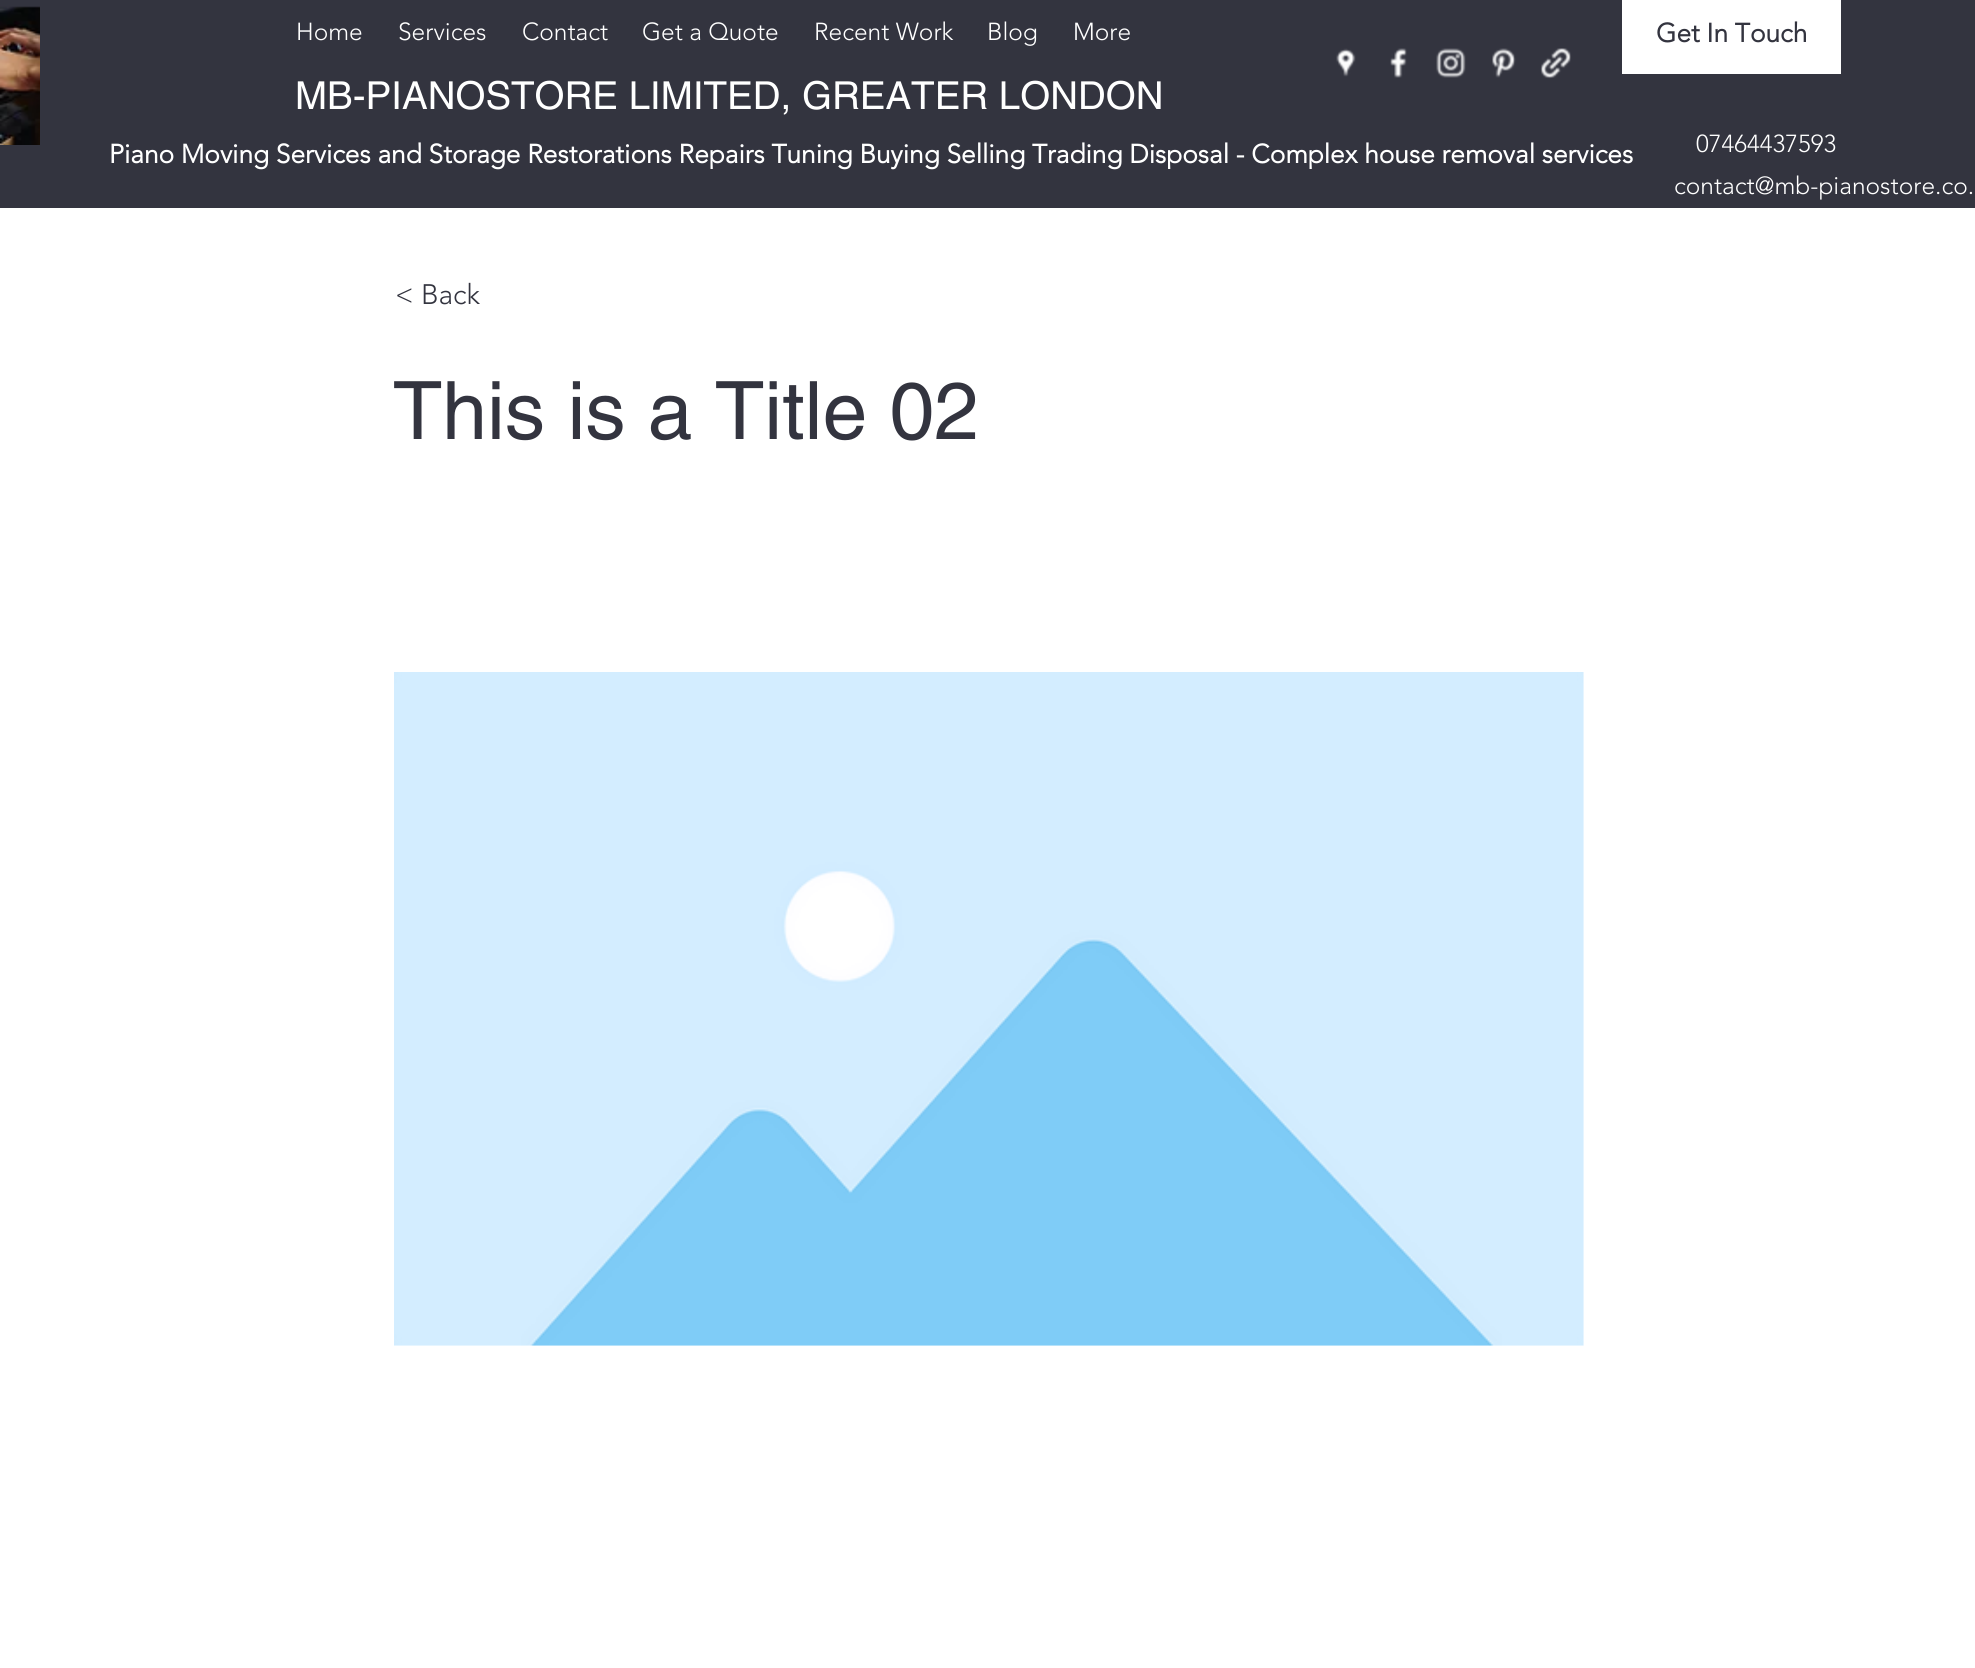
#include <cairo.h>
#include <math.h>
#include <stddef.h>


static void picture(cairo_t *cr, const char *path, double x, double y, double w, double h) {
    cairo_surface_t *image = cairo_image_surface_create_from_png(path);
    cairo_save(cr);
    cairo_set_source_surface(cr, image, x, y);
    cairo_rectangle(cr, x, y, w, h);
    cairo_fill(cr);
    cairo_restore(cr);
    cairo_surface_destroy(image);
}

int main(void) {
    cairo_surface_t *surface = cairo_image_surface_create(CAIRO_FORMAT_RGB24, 1975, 1668);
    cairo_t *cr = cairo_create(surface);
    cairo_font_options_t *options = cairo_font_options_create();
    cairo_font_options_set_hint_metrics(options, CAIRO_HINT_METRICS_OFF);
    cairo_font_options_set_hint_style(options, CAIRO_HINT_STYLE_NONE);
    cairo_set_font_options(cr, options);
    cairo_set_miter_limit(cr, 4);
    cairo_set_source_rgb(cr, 1, 1, 1);
    cairo_paint(cr);
    cairo_set_source_rgb(cr, 0.2, 0.204, 0.247);
    cairo_rectangle(cr, 0, 0, 1975, 208);
    cairo_fill(cr);
    picture(cr, "img1.png", 0, 6, 40, 139);
    cairo_select_font_face(cr, "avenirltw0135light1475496 Light", CAIRO_FONT_SLANT_NORMAL, CAIRO_FONT_WEIGHT_NORMAL);
    cairo_set_font_size(cr, 24.5);
    cairo_set_source_rgb(cr, 1, 1, 1);
    cairo_move_to(cr, 296, 40);
    cairo_show_text(cr, "Home");
    cairo_move_to(cr, 398, 40);
    cairo_show_text(cr, "Services");
    cairo_move_to(cr, 522, 40);
    cairo_show_text(cr, "Contact");
    cairo_move_to(cr, 642, 40);
    cairo_show_text(cr, "Get a Quote");
    cairo_move_to(cr, 814, 40);
    cairo_show_text(cr, "Recent Work");
    cairo_move_to(cr, 987, 40);
    cairo_show_text(cr, "Blog");
    cairo_move_to(cr, 1073, 40);
    cairo_show_text(cr, "More");
    cairo_select_font_face(cr, "helvetica", CAIRO_FONT_SLANT_NORMAL, CAIRO_FONT_WEIGHT_NORMAL);
    cairo_set_font_size(cr, 38.5);
    cairo_move_to(cr, 295, 109);
    cairo_show_text(cr, "MB-PIANOSTORE LIMITED, GREATER LONDON");
    cairo_rectangle(cr, 1622, 0, 219, 74);
    cairo_fill(cr);
    cairo_select_font_face(cr, "avenirltw0135light1475496", CAIRO_FONT_SLANT_NORMAL, CAIRO_FONT_WEIGHT_BOLD);
    cairo_set_font_size(cr, 26.25);
    cairo_set_source_rgb(cr, 0.2, 0.204, 0.247);
    cairo_move_to(cr, 1656, 42);
    cairo_show_text(cr, "Get In Touch");
    picture(cr, "img2.png", 1336, 48, 20, 29);
    picture(cr, "img3.png", 1390, 48, 17, 30);
    picture(cr, "img4.png", 1436, 48, 30, 30);
    picture(cr, "img5.png", 1492, 48, 24, 30);
    picture(cr, "img6.png", 1540, 48, 31, 31);
    cairo_select_font_face(cr, "avenirltw0135light1475496 Light", CAIRO_FONT_SLANT_NORMAL, CAIRO_FONT_WEIGHT_NORMAL);
    cairo_set_font_size(cr, 24.5);
    cairo_set_source_rgb(cr, 1, 1, 1);
    cairo_move_to(cr, 1696, 152);
    cairo_show_text(cr, "07464437593");
    cairo_select_font_face(cr, "avenirltw0135light1475496", CAIRO_FONT_SLANT_NORMAL, CAIRO_FONT_WEIGHT_BOLD);
    cairo_set_font_size(cr, 26.25);
    cairo_move_to(cr, 109, 163);
    cairo_show_text(cr, "Piano Moving Services and Storage Restorations Repairs Tuning Buying Selling Trading Disposal - Complex house removal services");
    cairo_select_font_face(cr, "avenirltw0135light1475496 Light", CAIRO_FONT_SLANT_NORMAL, CAIRO_FONT_WEIGHT_NORMAL);
    cairo_set_font_size(cr, 24.5);
    cairo_move_to(cr, 1674, 194);
    cairo_show_text(cr, "contact@mb-pianostore.co.");
    cairo_set_font_size(cr, 28);
    cairo_set_source_rgb(cr, 0.2, 0.204, 0.247);
    cairo_move_to(cr, 395, 304);
    cairo_show_text(cr, "< Back");
    cairo_select_font_face(cr, "helvetica", CAIRO_FONT_SLANT_NORMAL, CAIRO_FONT_WEIGHT_NORMAL);
    cairo_set_font_size(cr, 80.5);
    cairo_move_to(cr, 393, 439);
    cairo_show_text(cr, "This is a Title 02");
    picture(cr, "img7.png", 394, 672, 1190, 674);
    cairo_surface_write_to_png(surface, "page.png");
    cairo_font_options_destroy(options);
    cairo_destroy(cr);
    cairo_surface_destroy(surface);
    return 0;
}
